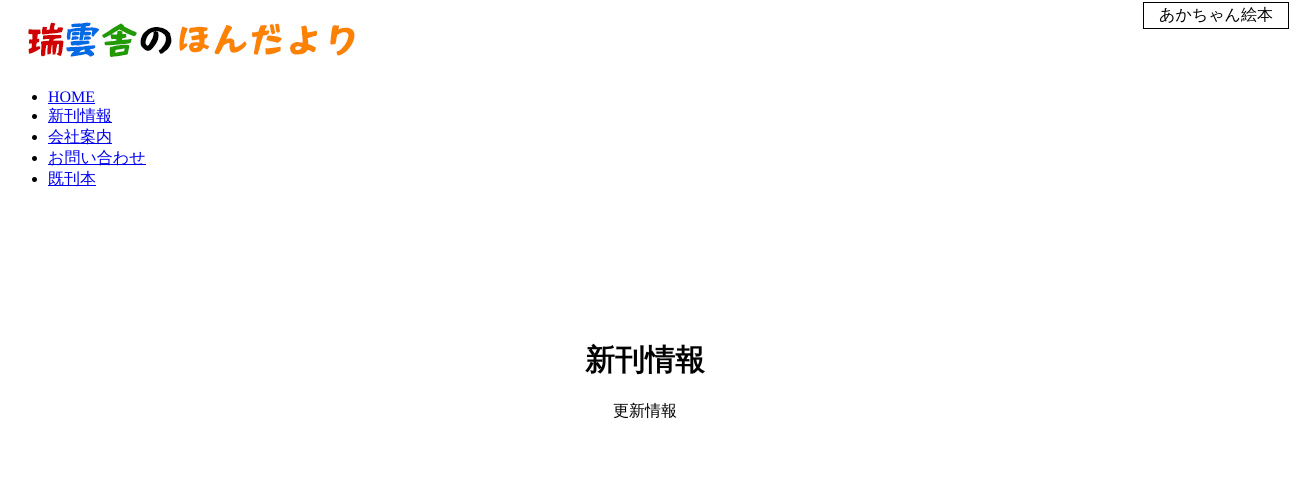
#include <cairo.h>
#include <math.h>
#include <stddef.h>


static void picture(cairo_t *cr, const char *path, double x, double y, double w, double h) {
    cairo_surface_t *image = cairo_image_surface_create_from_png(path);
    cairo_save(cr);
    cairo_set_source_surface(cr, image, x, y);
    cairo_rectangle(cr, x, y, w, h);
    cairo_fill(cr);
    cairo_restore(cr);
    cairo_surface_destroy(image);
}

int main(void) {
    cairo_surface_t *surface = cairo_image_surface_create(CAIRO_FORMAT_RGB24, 1289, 487);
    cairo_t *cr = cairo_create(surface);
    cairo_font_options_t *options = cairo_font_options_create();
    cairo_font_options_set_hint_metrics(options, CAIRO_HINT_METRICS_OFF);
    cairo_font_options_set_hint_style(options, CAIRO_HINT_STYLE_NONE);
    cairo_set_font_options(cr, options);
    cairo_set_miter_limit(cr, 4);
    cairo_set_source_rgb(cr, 1, 1, 1);
    cairo_paint(cr);
    cairo_rectangle(cr, 1143.5, 2.5, 145, 26);
    cairo_set_source_rgb(cr, 0, 0, 0);
    cairo_set_line_width(cr, 1);
    cairo_stroke(cr);
    cairo_select_font_face(cr, "WenQuanYi Zen Hei Medium", CAIRO_FONT_SLANT_NORMAL, CAIRO_FONT_WEIGHT_NORMAL);
    cairo_set_font_size(cr, 16);
    cairo_move_to(cr, 1159, 20);
    cairo_show_text(cr, "あかちゃん絵本");
    picture(cr, "img1.png", 24, 16, 336, 48);
    cairo_arc(cr, 34.5, 97.5, 2.5, 0, 2 * M_PI);
    cairo_fill(cr);
    cairo_select_font_face(cr, "Liberation Serif", CAIRO_FONT_SLANT_NORMAL, CAIRO_FONT_WEIGHT_NORMAL);
    cairo_set_source_rgb(cr, 0, 0, 0.933);
    cairo_move_to(cr, 48, 102);
    cairo_show_text(cr, "HOME");
    cairo_rectangle(cr, 48, 103, 47, 1);
    cairo_fill(cr);
    cairo_set_source_rgb(cr, 0, 0, 0);
    cairo_arc(cr, 34.5, 116.5, 2.5, 0, 2 * M_PI);
    cairo_fill(cr);
    cairo_set_source_rgb(cr, 0, 0, 0.933);
    cairo_rectangle(cr, 48, 122, 64, 1);
    cairo_fill(cr);
    cairo_select_font_face(cr, "WenQuanYi Zen Hei Medium", CAIRO_FONT_SLANT_NORMAL, CAIRO_FONT_WEIGHT_NORMAL);
    cairo_move_to(cr, 48, 121);
    cairo_show_text(cr, "新刊情報");
    cairo_set_source_rgb(cr, 0, 0, 0);
    cairo_new_path(cr);
    cairo_arc(cr, 34.5, 137.5, 2.5, 0, 2 * M_PI);
    cairo_fill(cr);
    cairo_set_source_rgb(cr, 0, 0, 0.933);
    cairo_rectangle(cr, 48, 143, 64, 1);
    cairo_fill(cr);
    cairo_move_to(cr, 48, 142);
    cairo_show_text(cr, "会社案内");
    cairo_set_source_rgb(cr, 0, 0, 0);
    cairo_new_path(cr);
    cairo_arc(cr, 34.5, 158.5, 2.5, 0, 2 * M_PI);
    cairo_fill(cr);
    cairo_set_source_rgb(cr, 0, 0, 0.933);
    cairo_rectangle(cr, 48, 164, 98, 1);
    cairo_fill(cr);
    cairo_move_to(cr, 48, 163);
    cairo_show_text(cr, "お問い合わせ");
    cairo_set_source_rgb(cr, 0, 0, 0);
    cairo_new_path(cr);
    cairo_arc(cr, 34.5, 179.5, 2.5, 0, 2 * M_PI);
    cairo_fill(cr);
    cairo_set_source_rgb(cr, 0, 0, 0.933);
    cairo_rectangle(cr, 48, 185, 48, 1);
    cairo_fill(cr);
    cairo_move_to(cr, 48, 184);
    cairo_show_text(cr, "既刊本");
    cairo_select_font_face(cr, "WenQuanYi Zen Hei", CAIRO_FONT_SLANT_NORMAL, CAIRO_FONT_WEIGHT_BOLD);
    cairo_set_font_size(cr, 30);
    cairo_set_source_rgb(cr, 0, 0, 0);
    cairo_move_to(cr, 585, 370);
    cairo_show_text(cr, "新刊情報");
    cairo_select_font_face(cr, "WenQuanYi Zen Hei Medium", CAIRO_FONT_SLANT_NORMAL, CAIRO_FONT_WEIGHT_NORMAL);
    cairo_set_font_size(cr, 16);
    cairo_move_to(cr, 613, 416);
    cairo_show_text(cr, "更新情報");
    cairo_surface_write_to_png(surface, "page.png");
    cairo_font_options_destroy(options);
    cairo_destroy(cr);
    cairo_surface_destroy(surface);
    return 0;
}
